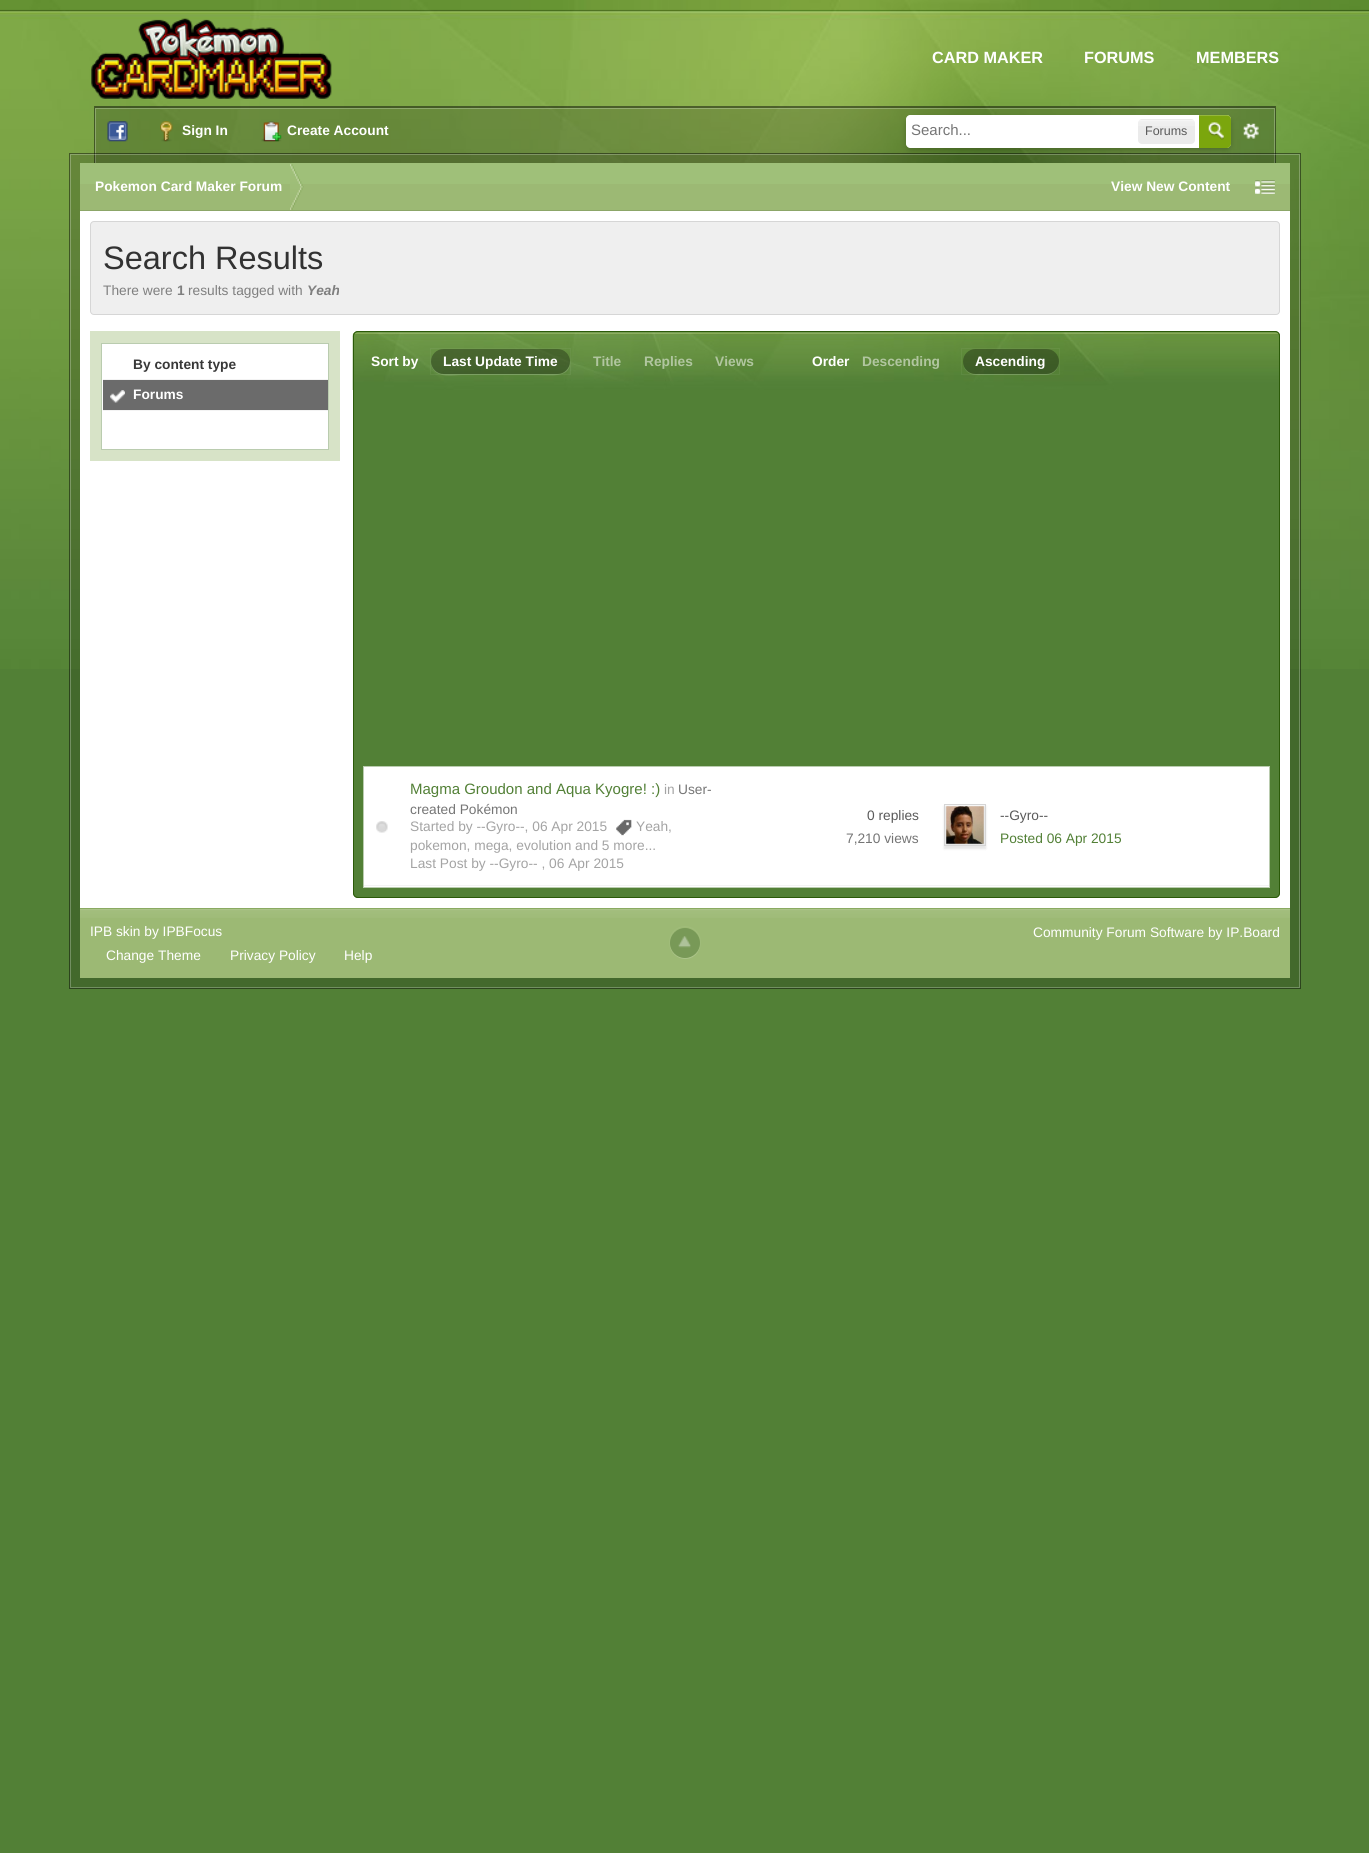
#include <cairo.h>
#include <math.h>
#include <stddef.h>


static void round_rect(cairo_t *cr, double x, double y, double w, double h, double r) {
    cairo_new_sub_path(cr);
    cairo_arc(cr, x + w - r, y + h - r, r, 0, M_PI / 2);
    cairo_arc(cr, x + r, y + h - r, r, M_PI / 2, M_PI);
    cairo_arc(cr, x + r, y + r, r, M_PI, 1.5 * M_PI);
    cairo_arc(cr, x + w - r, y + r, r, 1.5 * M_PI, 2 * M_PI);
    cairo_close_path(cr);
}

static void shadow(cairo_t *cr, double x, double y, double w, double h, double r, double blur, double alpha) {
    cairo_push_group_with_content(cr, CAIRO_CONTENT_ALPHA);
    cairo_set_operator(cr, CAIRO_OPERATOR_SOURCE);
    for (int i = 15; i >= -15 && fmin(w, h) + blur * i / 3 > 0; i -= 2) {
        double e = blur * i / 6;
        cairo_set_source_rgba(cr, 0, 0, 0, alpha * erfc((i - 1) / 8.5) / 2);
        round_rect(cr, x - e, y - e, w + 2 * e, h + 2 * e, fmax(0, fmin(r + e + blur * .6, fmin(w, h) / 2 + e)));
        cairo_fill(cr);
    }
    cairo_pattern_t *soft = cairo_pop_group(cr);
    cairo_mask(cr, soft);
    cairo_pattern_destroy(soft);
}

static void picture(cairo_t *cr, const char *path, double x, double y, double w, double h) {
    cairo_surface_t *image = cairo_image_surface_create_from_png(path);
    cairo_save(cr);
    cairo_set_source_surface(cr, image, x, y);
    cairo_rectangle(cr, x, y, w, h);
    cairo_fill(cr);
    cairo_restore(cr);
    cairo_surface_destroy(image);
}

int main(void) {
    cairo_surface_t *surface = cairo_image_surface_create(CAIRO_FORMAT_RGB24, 1369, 1853);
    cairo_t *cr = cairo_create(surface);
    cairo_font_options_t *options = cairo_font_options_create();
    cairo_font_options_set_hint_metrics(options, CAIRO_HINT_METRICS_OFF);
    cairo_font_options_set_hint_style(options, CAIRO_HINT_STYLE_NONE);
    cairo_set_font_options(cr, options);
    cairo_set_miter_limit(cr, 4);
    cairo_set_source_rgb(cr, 0.322, 0.502, 0.212);
    cairo_paint(cr);
    picture(cr, "img1.png", 0, 0, 1369, 669);
    picture(cr, "img2.png", 91, 18, 241, 81);
    cairo_select_font_face(cr, "Liberation Sans", CAIRO_FONT_SLANT_NORMAL, CAIRO_FONT_WEIGHT_BOLD);
    cairo_set_font_size(cr, 16.25);
    cairo_set_source_rgb(cr, 1, 1, 1);
    cairo_move_to(cr, 932, 63);
    cairo_show_text(cr, "CARD MAKER");
    cairo_move_to(cr, 1084, 63);
    cairo_show_text(cr, "FORUMS");
    cairo_move_to(cr, 1196, 63);
    cairo_show_text(cr, "MEMBERS");
    cairo_set_source_rgba(cr, 0, 0, 0, 0.18);
    cairo_rectangle(cr, 94, 106, 1182, 57);
    cairo_fill(cr);
    cairo_rectangle(cr, 95.5, 108.5, 1179, 56);
    cairo_set_source_rgba(cr, 1, 1, 1, 0.25);
    cairo_set_line_width(cr, 1);
    cairo_stroke(cr);
    cairo_set_source_rgba(cr, 0, 0, 0, 0.35);
    cairo_new_path(cr);
    cairo_move_to(cr, 94, 106);
    cairo_line_to(cr, 1276, 106);
    cairo_line_to(cr, 1275, 108);
    cairo_line_to(cr, 95, 108);
    cairo_close_path(cr);
    cairo_fill(cr);
    cairo_new_path(cr);
    cairo_move_to(cr, 1276, 106);
    cairo_line_to(cr, 1276, 165);
    cairo_line_to(cr, 1275, 165);
    cairo_line_to(cr, 1275, 108);
    cairo_close_path(cr);
    cairo_fill(cr);
    cairo_new_path(cr);
    cairo_move_to(cr, 94, 165);
    cairo_line_to(cr, 94, 106);
    cairo_line_to(cr, 95, 108);
    cairo_line_to(cr, 95, 165);
    cairo_close_path(cr);
    cairo_fill(cr);
    picture(cr, "img3.png", 107, 121, 21, 21);
    picture(cr, "img4.png", 160, 121, 13, 21);
    cairo_set_font_size(cr, 13.75);
    cairo_set_source_rgb(cr, 1, 1, 1);
    cairo_move_to(cr, 182, 135);
    cairo_show_text(cr, "Sign In");
    picture(cr, "img5.png", 261, 121, 21, 21);
    cairo_move_to(cr, 287, 135);
    cairo_show_text(cr, "Create Account");
    cairo_set_source_rgb(cr, 0, 0, 0);
    shadow(cr, 906, 118, 325, 32, 5, 2.5, 0.2);
    cairo_set_source_rgb(cr, 1, 1, 1);
    cairo_new_path(cr);
    cairo_move_to(cr, 910, 115);
    cairo_line_to(cr, 1226, 115);
    cairo_curve_to(cr, 1229, 115, 1231, 117, 1231, 120);
    cairo_line_to(cr, 1231, 143);
    cairo_curve_to(cr, 1231, 146, 1229, 148, 1226, 148);
    cairo_line_to(cr, 910, 148);
    cairo_curve_to(cr, 908, 148, 906, 146, 906, 144);
    cairo_line_to(cr, 906, 119);
    cairo_curve_to(cr, 906, 117, 908, 115, 910, 115);
    cairo_close_path(cr);
    cairo_fill(cr);
    cairo_select_font_face(cr, "Liberation Sans", CAIRO_FONT_SLANT_NORMAL, CAIRO_FONT_WEIGHT_NORMAL);
    cairo_set_font_size(cr, 15);
    cairo_set_source_rgb(cr, 0.459, 0.459, 0.459);
    cairo_move_to(cr, 911, 135);
    cairo_show_text(cr, "Search...");
    cairo_set_source_rgb(cr, 0.918, 0.918, 0.918);
    round_rect(cr, 1138, 119, 57, 25, 4);
    cairo_fill(cr);
    picture(cr, "img6.png", 1138, 120, 57, 6);
    cairo_set_font_size(cr, 12.5);
    cairo_set_source_rgb(cr, 0.353, 0.353, 0.353);
    cairo_move_to(cr, 1145, 135);
    cairo_show_text(cr, "Forums");
    cairo_set_source_rgb(cr, 0.482, 0.651, 0.051);
    cairo_new_path(cr);
    cairo_move_to(cr, 1199, 115);
    cairo_line_to(cr, 1227, 115);
    cairo_curve_to(cr, 1229, 115, 1231, 117, 1231, 119);
    cairo_line_to(cr, 1231, 144);
    cairo_curve_to(cr, 1231, 146, 1229, 148, 1227, 148);
    cairo_line_to(cr, 1199, 148);
    cairo_close_path(cr);
    cairo_fill(cr);
    picture(cr, "img7.png", 1208, 122, 16, 18);
    cairo_set_source_rgba(cr, 1, 1, 1, 0.2);
    cairo_new_path(cr);
    cairo_move_to(cr, 1199, 116);
    cairo_line_to(cr, 1228, 116);
    cairo_curve_to(cr, 1230, 116, 1231, 118, 1231, 120);
    cairo_line_to(cr, 1231, 119);
    cairo_curve_to(cr, 1231, 117, 1229, 115, 1227, 115);
    cairo_line_to(cr, 1199, 115);
    cairo_close_path(cr);
    cairo_fill(cr);
    picture(cr, "img8.png", 1243, 123, 16, 16);
    cairo_set_source_rgba(cr, 0, 0, 0, 0.18);
    cairo_rectangle(cr, 69, 153, 1232, 836);
    cairo_fill(cr);
    cairo_rectangle(cr, 70.5, 154.5, 1229, 833);
    cairo_set_source_rgba(cr, 1, 1, 1, 0.25);
    cairo_stroke(cr);
    cairo_rectangle(cr, 69.5, 153.5, 1231, 835);
    cairo_set_source_rgba(cr, 0, 0, 0, 0.35);
    cairo_stroke(cr);
    cairo_set_source_rgb(cr, 1, 1, 1);
    cairo_rectangle(cr, 80, 211, 1210, 697);
    cairo_fill(cr);
    cairo_set_source_rgb(cr, 0.612, 0.725, 0.455);
    cairo_rectangle(cr, 80, 184, 1210, 26);
    cairo_fill(cr);
    cairo_set_source_rgb(cr, 0.624, 0.753, 0.475);
    cairo_rectangle(cr, 80, 163, 1210, 21);
    cairo_fill(cr);
    cairo_set_source_rgb(cr, 0.549, 0.651, 0.408);
    cairo_rectangle(cr, 80, 210, 1210, 1);
    cairo_fill(cr);
    picture(cr, "img9.png", 290, 164, 14, 46);
    cairo_select_font_face(cr, "Liberation Sans", CAIRO_FONT_SLANT_NORMAL, CAIRO_FONT_WEIGHT_BOLD);
    cairo_set_font_size(cr, 13.75);
    cairo_set_source_rgb(cr, 1, 1, 1);
    cairo_move_to(cr, 95, 191);
    cairo_show_text(cr, "Pokemon Card Maker Forum");
    cairo_move_to(cr, 1111, 191);
    cairo_show_text(cr, "View New Content");
    picture(cr, "img10.png", 1255, 180, 20, 14);
    cairo_set_source_rgb(cr, 0.937, 0.937, 0.937);
    round_rect(cr, 90.5, 221.5, 1189, 93, 3.5);
    cairo_fill_preserve(cr);
    cairo_set_source_rgb(cr, 0.839, 0.839, 0.839);
    cairo_stroke(cr);
    cairo_select_font_face(cr, "Liberation Sans", CAIRO_FONT_SLANT_NORMAL, CAIRO_FONT_WEIGHT_NORMAL);
    cairo_set_font_size(cr, 32.5);
    cairo_set_source_rgb(cr, 0.196, 0.196, 0.196);
    cairo_move_to(cr, 103, 269);
    cairo_show_text(cr, "Search Results");
    cairo_set_font_size(cr, 13.75);
    cairo_set_source_rgb(cr, 0.498, 0.498, 0.498);
    cairo_move_to(cr, 103, 295);
    cairo_show_text(cr, "There were");
    cairo_select_font_face(cr, "Liberation Sans", CAIRO_FONT_SLANT_NORMAL, CAIRO_FONT_WEIGHT_BOLD);
    cairo_move_to(cr, 177, 295);
    cairo_show_text(cr, "1");
    cairo_select_font_face(cr, "Liberation Sans", CAIRO_FONT_SLANT_NORMAL, CAIRO_FONT_WEIGHT_NORMAL);
    cairo_move_to(cr, 188, 295);
    cairo_show_text(cr, "results tagged with");
    cairo_select_font_face(cr, "Liberation Sans", CAIRO_FONT_SLANT_ITALIC, CAIRO_FONT_WEIGHT_BOLD);
    cairo_move_to(cr, 307, 295);
    cairo_show_text(cr, "Yeah");
    cairo_set_source_rgb(cr, 0.843, 0.89, 0.78);
    cairo_rectangle(cr, 90, 331, 250, 130);
    cairo_fill(cr);
    cairo_set_source_rgb(cr, 1, 1, 1);
    cairo_rectangle(cr, 101.5, 343.5, 227, 106);
    cairo_fill_preserve(cr);
    cairo_set_source_rgb(cr, 0.729, 0.8, 0.686);
    cairo_stroke(cr);
    cairo_select_font_face(cr, "Liberation Sans", CAIRO_FONT_SLANT_NORMAL, CAIRO_FONT_WEIGHT_BOLD);
    cairo_set_source_rgb(cr, 0.22, 0.22, 0.22);
    cairo_move_to(cr, 133, 369);
    cairo_show_text(cr, "By content type");
    cairo_set_source_rgb(cr, 0.953, 0.953, 0.953);
    cairo_rectangle(cr, 103, 379, 225, 1);
    cairo_fill(cr);
    cairo_rectangle(cr, 103, 410, 225, 1);
    cairo_fill(cr);
    cairo_set_source_rgb(cr, 0.42, 0.42, 0.42);
    cairo_rectangle(cr, 103, 380, 225, 30);
    cairo_fill(cr);
    picture(cr, "img11.png", 110, 390, 15, 13);
    cairo_set_source_rgb(cr, 1, 1, 1);
    cairo_move_to(cr, 133, 399);
    cairo_show_text(cr, "Forums");
    cairo_set_source_rgb(cr, 0.322, 0.502, 0.212);
    round_rect(cr, 353, 331, 927, 567, 5);
    cairo_fill(cr);
    picture(cr, "img12.png", 352, 332, 928, 58);
    round_rect(cr, 353.5, 331.5, 926, 566, 4.5);
    cairo_set_source_rgb(cr, 0.169, 0.353, 0.039);
    cairo_stroke(cr);
    cairo_set_source_rgb(cr, 1, 1, 1);
    cairo_move_to(cr, 371, 366);
    cairo_show_text(cr, "Sort by");
    cairo_rectangle(cr, 430.5, 348.5, 140, 26);
    cairo_set_source_rgba(cr, 1, 1, 1, 0.05);
    cairo_stroke(cr);
    cairo_set_source_rgba(cr, 1, 1, 1, 0.16);
    cairo_new_path(cr);
    cairo_move_to(cr, 431, 359);
    cairo_curve_to(cr, 431, 362, 431, 365, 432, 367);
    cairo_curve_to(cr, 437, 379, 454, 375, 462, 375);
    cairo_line_to(cr, 538, 375);
    cairo_curve_to(cr, 548, 375, 571, 379, 570, 362);
    cairo_curve_to(cr, 570, 368, 564, 374, 558, 374);
    cairo_line_to(cr, 444, 374);
    cairo_curve_to(cr, 437, 374, 431, 368, 431, 361);
    cairo_close_path(cr);
    cairo_fill(cr);
    cairo_set_source_rgba(cr, 0, 0, 0, 0.3);
    round_rect(cr, 431, 349, 139, 25, 12.5);
    cairo_fill(cr);
    cairo_set_source_rgb(cr, 1, 1, 1);
    cairo_move_to(cr, 443, 366);
    cairo_show_text(cr, "Last Update Time");
    cairo_set_source_rgb(cr, 0.694, 0.776, 0.627);
    cairo_move_to(cr, 593, 366);
    cairo_show_text(cr, "Title");
    cairo_move_to(cr, 644, 366);
    cairo_show_text(cr, "Replies");
    cairo_move_to(cr, 715, 366);
    cairo_show_text(cr, "Views");
    cairo_set_source_rgb(cr, 1, 1, 1);
    cairo_move_to(cr, 812, 366);
    cairo_show_text(cr, "Order");
    cairo_set_source_rgb(cr, 0.694, 0.776, 0.627);
    cairo_move_to(cr, 862, 366);
    cairo_show_text(cr, "Descending");
    cairo_rectangle(cr, 961.5, 348.5, 98, 26);
    cairo_set_source_rgba(cr, 1, 1, 1, 0.05);
    cairo_stroke(cr);
    cairo_set_source_rgba(cr, 1, 1, 1, 0.16);
    cairo_new_path(cr);
    cairo_move_to(cr, 964, 367);
    cairo_curve_to(cr, 965, 371, 970, 375, 976, 375);
    cairo_line_to(cr, 1046, 375);
    cairo_curve_to(cr, 1053, 375, 1059, 369, 1059, 362);
    cairo_line_to(cr, 1059, 359);
    cairo_line_to(cr, 1059, 361);
    cairo_curve_to(cr, 1059, 368, 1053, 374, 1046, 374);
    cairo_line_to(cr, 975, 374);
    cairo_curve_to(cr, 970, 374, 966, 371, 964, 367);
    cairo_close_path(cr);
    cairo_fill(cr);
    cairo_set_source_rgba(cr, 0, 0, 0, 0.3);
    round_rect(cr, 963, 349, 96, 25, 12.5);
    cairo_fill(cr);
    cairo_set_source_rgb(cr, 1, 1, 1);
    cairo_move_to(cr, 975, 366);
    cairo_show_text(cr, "Ascending");
    cairo_rectangle(cr, 363.5, 766.5, 906, 121);
    cairo_fill_preserve(cr);
    cairo_set_source_rgb(cr, 0.729, 0.8, 0.686);
    cairo_stroke(cr);
    cairo_select_font_face(cr, "Liberation Sans", CAIRO_FONT_SLANT_NORMAL, CAIRO_FONT_WEIGHT_NORMAL);
    cairo_set_font_size(cr, 15);
    cairo_set_source_rgb(cr, 0.322, 0.502, 0.212);
    cairo_move_to(cr, 410, 794);
    cairo_show_text(cr, "Magma Groudon and Aqua Kyogre! :)");
    cairo_set_font_size(cr, 13.75);
    cairo_set_source_rgb(cr, 0.643, 0.643, 0.643);
    cairo_move_to(cr, 664, 794);
    cairo_show_text(cr, "in");
    cairo_set_source_rgb(cr, 0.459, 0.459, 0.459);
    cairo_move_to(cr, 678, 794);
    cairo_show_text(cr, "User-");
    cairo_move_to(cr, 410, 814);
    cairo_show_text(cr, "created Pokémon");
    cairo_set_source_rgb(cr, 0.643, 0.643, 0.643);
    cairo_move_to(cr, 410, 831);
    cairo_show_text(cr, "Started by --Gyro--, 06 Apr 2015");
    picture(cr, "img13.png", 616, 819, 16, 17);
    cairo_move_to(cr, 636, 831);
    cairo_show_text(cr, "Yeah,");
    cairo_move_to(cr, 410, 850);
    cairo_show_text(cr, "pokemon, mega, evolution and 5 more...");
    cairo_move_to(cr, 410, 868);
    cairo_show_text(cr, "Last Post by --Gyro-- , 06 Apr 2015");
    cairo_set_source_rgb(cr, 0.353, 0.353, 0.353);
    cairo_move_to(cr, 867, 820);
    cairo_show_text(cr, "0 replies");
    cairo_set_source_rgb(cr, 0.459, 0.459, 0.459);
    cairo_move_to(cr, 846, 843);
    cairo_show_text(cr, "7,210 views");
    cairo_set_source_rgb(cr, 0, 0, 0);
    shadow(cr, 944, 806, 42, 43, 0, 1, 0.1);
    cairo_rectangle(cr, 944.5, 804.5, 41, 41);
    cairo_set_source_rgb(cr, 0.835, 0.835, 0.835);
    cairo_stroke(cr);
    picture(cr, "img14.png", 946, 806, 38, 38);
    cairo_set_source_rgb(cr, 0.353, 0.353, 0.353);
    cairo_move_to(cr, 1000, 820);
    cairo_show_text(cr, "--Gyro--");
    cairo_set_source_rgb(cr, 0.322, 0.502, 0.212);
    cairo_move_to(cr, 1000, 843);
    cairo_show_text(cr, "Posted 06 Apr 2015");
    cairo_set_source_rgb(cr, 0.953, 0.953, 0.953);
    cairo_rectangle(cr, 364, 885, 905, 1);
    cairo_fill(cr);
    picture(cr, "img15.png", 376, 821, 12, 12);
    cairo_set_source_rgb(cr, 0.612, 0.725, 0.455);
    cairo_rectangle(cr, 80, 909, 1210, 69);
    cairo_fill(cr);
    picture(cr, "img16.png", 80, 909, 1210, 9);
    cairo_set_source_rgb(cr, 0.541, 0.667, 0.38);
    cairo_rectangle(cr, 80, 908, 1210, 1);
    cairo_fill(cr);
    cairo_set_source_rgb(cr, 1, 1, 1);
    cairo_move_to(cr, 90, 936);
    cairo_show_text(cr, "IPB skin by IPBFocus");
    cairo_set_source_rgb(cr, 0.659, 0.757, 0.522);
    cairo_new_path(cr);
    cairo_move_to(cr, 670, 943);
    cairo_curve_to(cr, 669.5, 958.5, 689, 965, 697.5, 952.5);
    cairo_curve_to(cr, 699, 949.5, 700, 946.5, 700, 943);
    cairo_curve_to(cr, 699, 962, 671, 962, 670, 943);
    cairo_close_path(cr);
    cairo_fill(cr);
    round_rect(cr, 669.5, 926.5, 31, 32, 15.5);
    cairo_set_source_rgba(cr, 0.769, 0.835, 0.675, 0.1);
    cairo_stroke(cr);
    cairo_set_source_rgb(cr, 0.471, 0.6, 0.341);
    cairo_arc(cr, 685, 943, 15, 0, 2 * M_PI);
    cairo_fill(cr);
    picture(cr, "img17.png", 678, 936, 13, 12);
    cairo_set_source_rgb(cr, 1, 1, 1);
    cairo_move_to(cr, 1033, 937);
    cairo_show_text(cr, "Community Forum Software by IP.Board");
    cairo_move_to(cr, 106, 960);
    cairo_show_text(cr, "Change Theme");
    cairo_move_to(cr, 230, 960);
    cairo_show_text(cr, "Privacy Policy");
    cairo_move_to(cr, 344, 960);
    cairo_show_text(cr, "Help");
    cairo_surface_write_to_png(surface, "page.png");
    cairo_font_options_destroy(options);
    cairo_destroy(cr);
    cairo_surface_destroy(surface);
    return 0;
}
